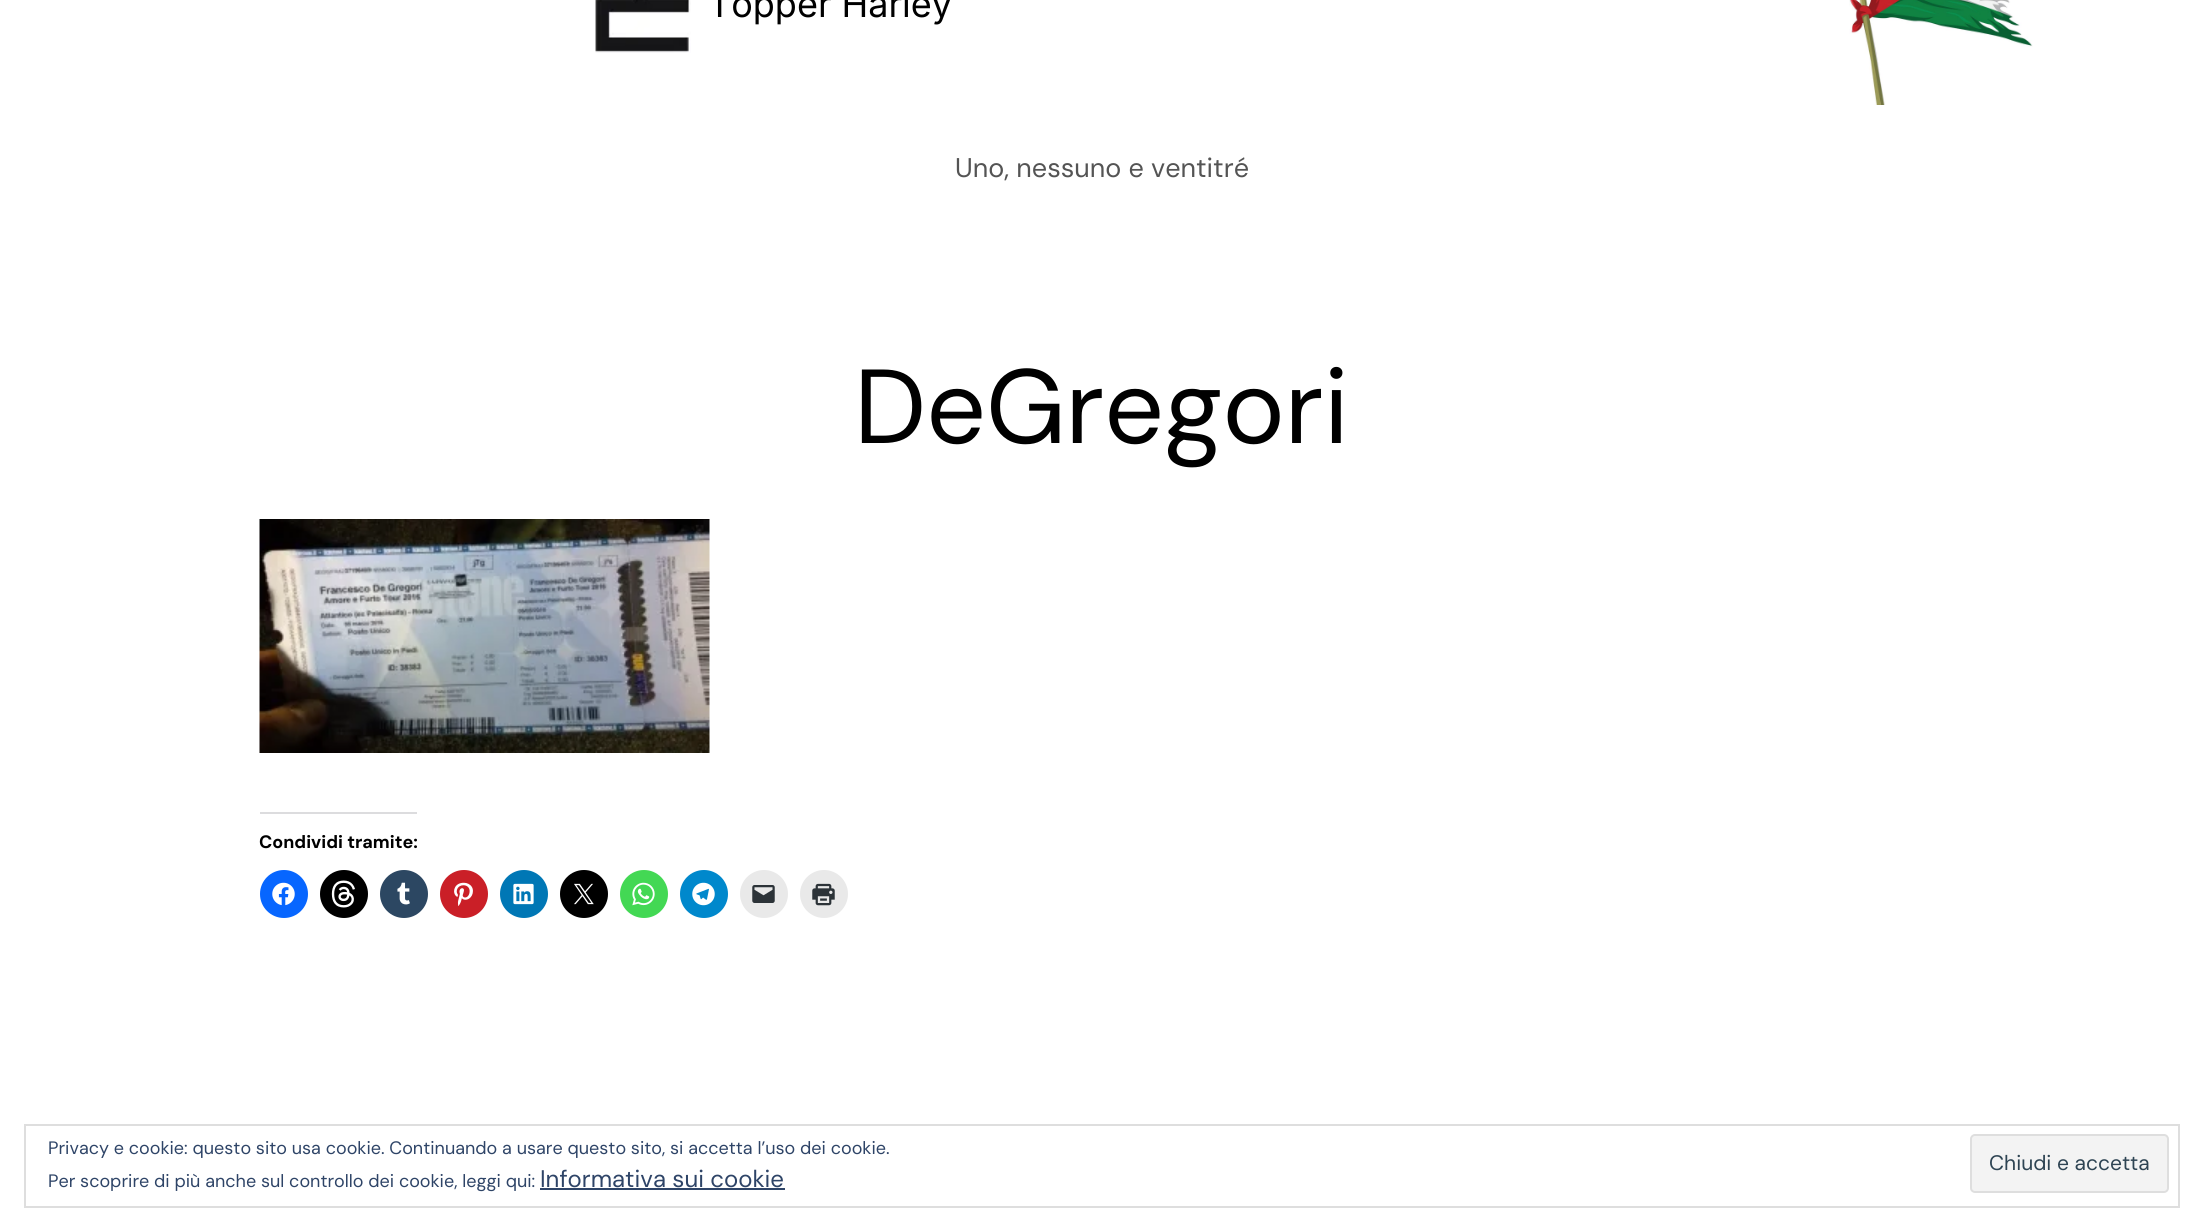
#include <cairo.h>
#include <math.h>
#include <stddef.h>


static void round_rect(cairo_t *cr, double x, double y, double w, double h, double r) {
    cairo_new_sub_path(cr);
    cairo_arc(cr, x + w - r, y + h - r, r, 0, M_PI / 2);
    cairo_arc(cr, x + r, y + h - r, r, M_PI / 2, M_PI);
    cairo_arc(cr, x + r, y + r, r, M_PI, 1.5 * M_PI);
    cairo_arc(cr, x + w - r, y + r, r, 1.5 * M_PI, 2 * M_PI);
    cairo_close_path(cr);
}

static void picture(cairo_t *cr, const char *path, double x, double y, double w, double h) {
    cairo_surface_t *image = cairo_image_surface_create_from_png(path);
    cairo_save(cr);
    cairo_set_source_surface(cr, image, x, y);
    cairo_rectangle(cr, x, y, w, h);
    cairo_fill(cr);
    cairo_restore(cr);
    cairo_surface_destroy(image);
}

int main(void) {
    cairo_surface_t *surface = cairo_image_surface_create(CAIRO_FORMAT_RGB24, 2203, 1231);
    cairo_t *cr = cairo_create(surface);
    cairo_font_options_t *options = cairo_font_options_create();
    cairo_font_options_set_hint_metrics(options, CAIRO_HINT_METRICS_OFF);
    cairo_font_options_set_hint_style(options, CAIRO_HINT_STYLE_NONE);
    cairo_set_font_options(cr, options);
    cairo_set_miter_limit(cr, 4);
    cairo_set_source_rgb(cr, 1, 1, 1);
    cairo_paint(cr);
    picture(cr, "img1.png", 595, 0, 96, 53);
    cairo_select_font_face(cr, "Inter", CAIRO_FONT_SLANT_NORMAL, CAIRO_FONT_WEIGHT_NORMAL);
    cairo_set_font_size(cr, 36);
    cairo_set_source_rgb(cr, 0, 0, 0);
    cairo_move_to(cr, 708, 17);
    cairo_show_text(cr, "Topper Harley");
    picture(cr, "img2.png", 1849, 0, 184, 105);
    cairo_select_font_face(cr, "DM Sans", CAIRO_FONT_SLANT_NORMAL, CAIRO_FONT_WEIGHT_NORMAL);
    cairo_set_font_size(cr, 27);
    cairo_set_source_rgb(cr, 0.329, 0.329, 0.329);
    cairo_move_to(cr, 955, 177);
    cairo_show_text(cr, "Uno, nessuno e ventitré");
    cairo_set_font_size(cr, 105);
    cairo_set_source_rgb(cr, 0, 0, 0);
    cairo_move_to(cr, 854, 443);
    cairo_show_text(cr, "DeGregori");
    picture(cr, "img3.png", 259, 519, 451, 234);
    cairo_set_source_rgb(cr, 0.863, 0.863, 0.871);
    cairo_rectangle(cr, 260, 812, 157, 2);
    cairo_fill(cr);
    cairo_select_font_face(cr, "DM Sans", CAIRO_FONT_SLANT_NORMAL, CAIRO_FONT_WEIGHT_BOLD);
    cairo_set_font_size(cr, 18);
    cairo_set_source_rgb(cr, 0, 0, 0);
    cairo_move_to(cr, 259, 848);
    cairo_show_text(cr, "Condividi tramite:");
    cairo_set_source_rgb(cr, 0.031, 0.4, 1);
    cairo_new_path(cr);
    cairo_arc(cr, 284, 894, 24, 0, 2 * M_PI);
    cairo_fill(cr);
    picture(cr, "img4.png", 272, 882, 23, 24);
    cairo_set_source_rgb(cr, 0, 0, 0);
    cairo_arc(cr, 344, 894, 24, 0, 2 * M_PI);
    cairo_fill(cr);
    picture(cr, "img5.png", 331, 880, 24, 28);
    cairo_set_source_rgb(cr, 0.173, 0.278, 0.384);
    cairo_arc(cr, 404, 894, 24, 0, 2 * M_PI);
    cairo_fill(cr);
    picture(cr, "img6.png", 397, 882, 13, 23);
    cairo_set_source_rgb(cr, 0.792, 0.122, 0.153);
    cairo_arc(cr, 464, 894, 24, 0, 2 * M_PI);
    cairo_fill(cr);
    picture(cr, "img7.png", 454, 882, 19, 24);
    cairo_set_source_rgb(cr, 0, 0.467, 0.71);
    cairo_arc(cr, 524, 894, 24, 0, 2 * M_PI);
    cairo_fill(cr);
    picture(cr, "img8.png", 513, 883, 21, 22);
    cairo_set_source_rgb(cr, 0, 0, 0);
    cairo_arc(cr, 584, 894, 24, 0, 2 * M_PI);
    cairo_fill(cr);
    picture(cr, "img9.png", 574, 883, 20, 22);
    cairo_set_source_rgb(cr, 0.263, 0.847, 0.329);
    cairo_arc(cr, 644, 894, 24, 0, 2 * M_PI);
    cairo_fill(cr);
    picture(cr, "img10.png", 632, 882, 23, 24);
    cairo_set_source_rgb(cr, 0, 0.533, 0.8);
    cairo_arc(cr, 704, 894, 24, 0, 2 * M_PI);
    cairo_fill(cr);
    picture(cr, "img11.png", 692, 882, 23, 24);
    cairo_set_source_rgb(cr, 0.914, 0.914, 0.914);
    cairo_arc(cr, 764, 894, 24, 0, 2 * M_PI);
    cairo_fill(cr);
    picture(cr, "img12.png", 752, 885, 23, 18);
    cairo_arc(cr, 824, 894, 24, 0, 2 * M_PI);
    cairo_fill(cr);
    picture(cr, "img13.png", 812, 883, 23, 23);
    cairo_rectangle(cr, 25, 1125, 2154, 82);
    cairo_set_source_rgb(cr, 0.871, 0.871, 0.871);
    cairo_stroke(cr);
    cairo_select_font_face(cr, "DM Sans", CAIRO_FONT_SLANT_NORMAL, CAIRO_FONT_WEIGHT_NORMAL);
    cairo_set_source_rgb(cr, 0.18, 0.267, 0.404);
    cairo_move_to(cr, 48, 1154);
    cairo_show_text(cr, "Privacy e cookie: questo sito usa cookie. Continuando a usare questo sito, si accetta l’uso dei cookie.");
    cairo_set_source_rgb(cr, 0.953, 0.953, 0.953);
    round_rect(cr, 1971, 1135, 197, 57, 4);
    cairo_fill_preserve(cr);
    cairo_set_source_rgb(cr, 0.871, 0.871, 0.871);
    cairo_stroke(cr);
    cairo_set_font_size(cr, 21);
    cairo_set_source_rgb(cr, 0.18, 0.267, 0.325);
    cairo_move_to(cr, 1989, 1170);
    cairo_show_text(cr, "Chiudi e accetta");
    cairo_set_font_size(cr, 18);
    cairo_set_source_rgb(cr, 0.18, 0.267, 0.404);
    cairo_move_to(cr, 48, 1187);
    cairo_show_text(cr, "Per scoprire di più anche sul controllo dei cookie, leggi qui:");
    cairo_set_font_size(cr, 24);
    cairo_move_to(cr, 540, 1187);
    cairo_show_text(cr, "Informativa sui cookie");
    cairo_rectangle(cr, 540, 1188, 245, 2);
    cairo_fill(cr);
    cairo_surface_write_to_png(surface, "page.png");
    cairo_font_options_destroy(options);
    cairo_destroy(cr);
    cairo_surface_destroy(surface);
    return 0;
}
